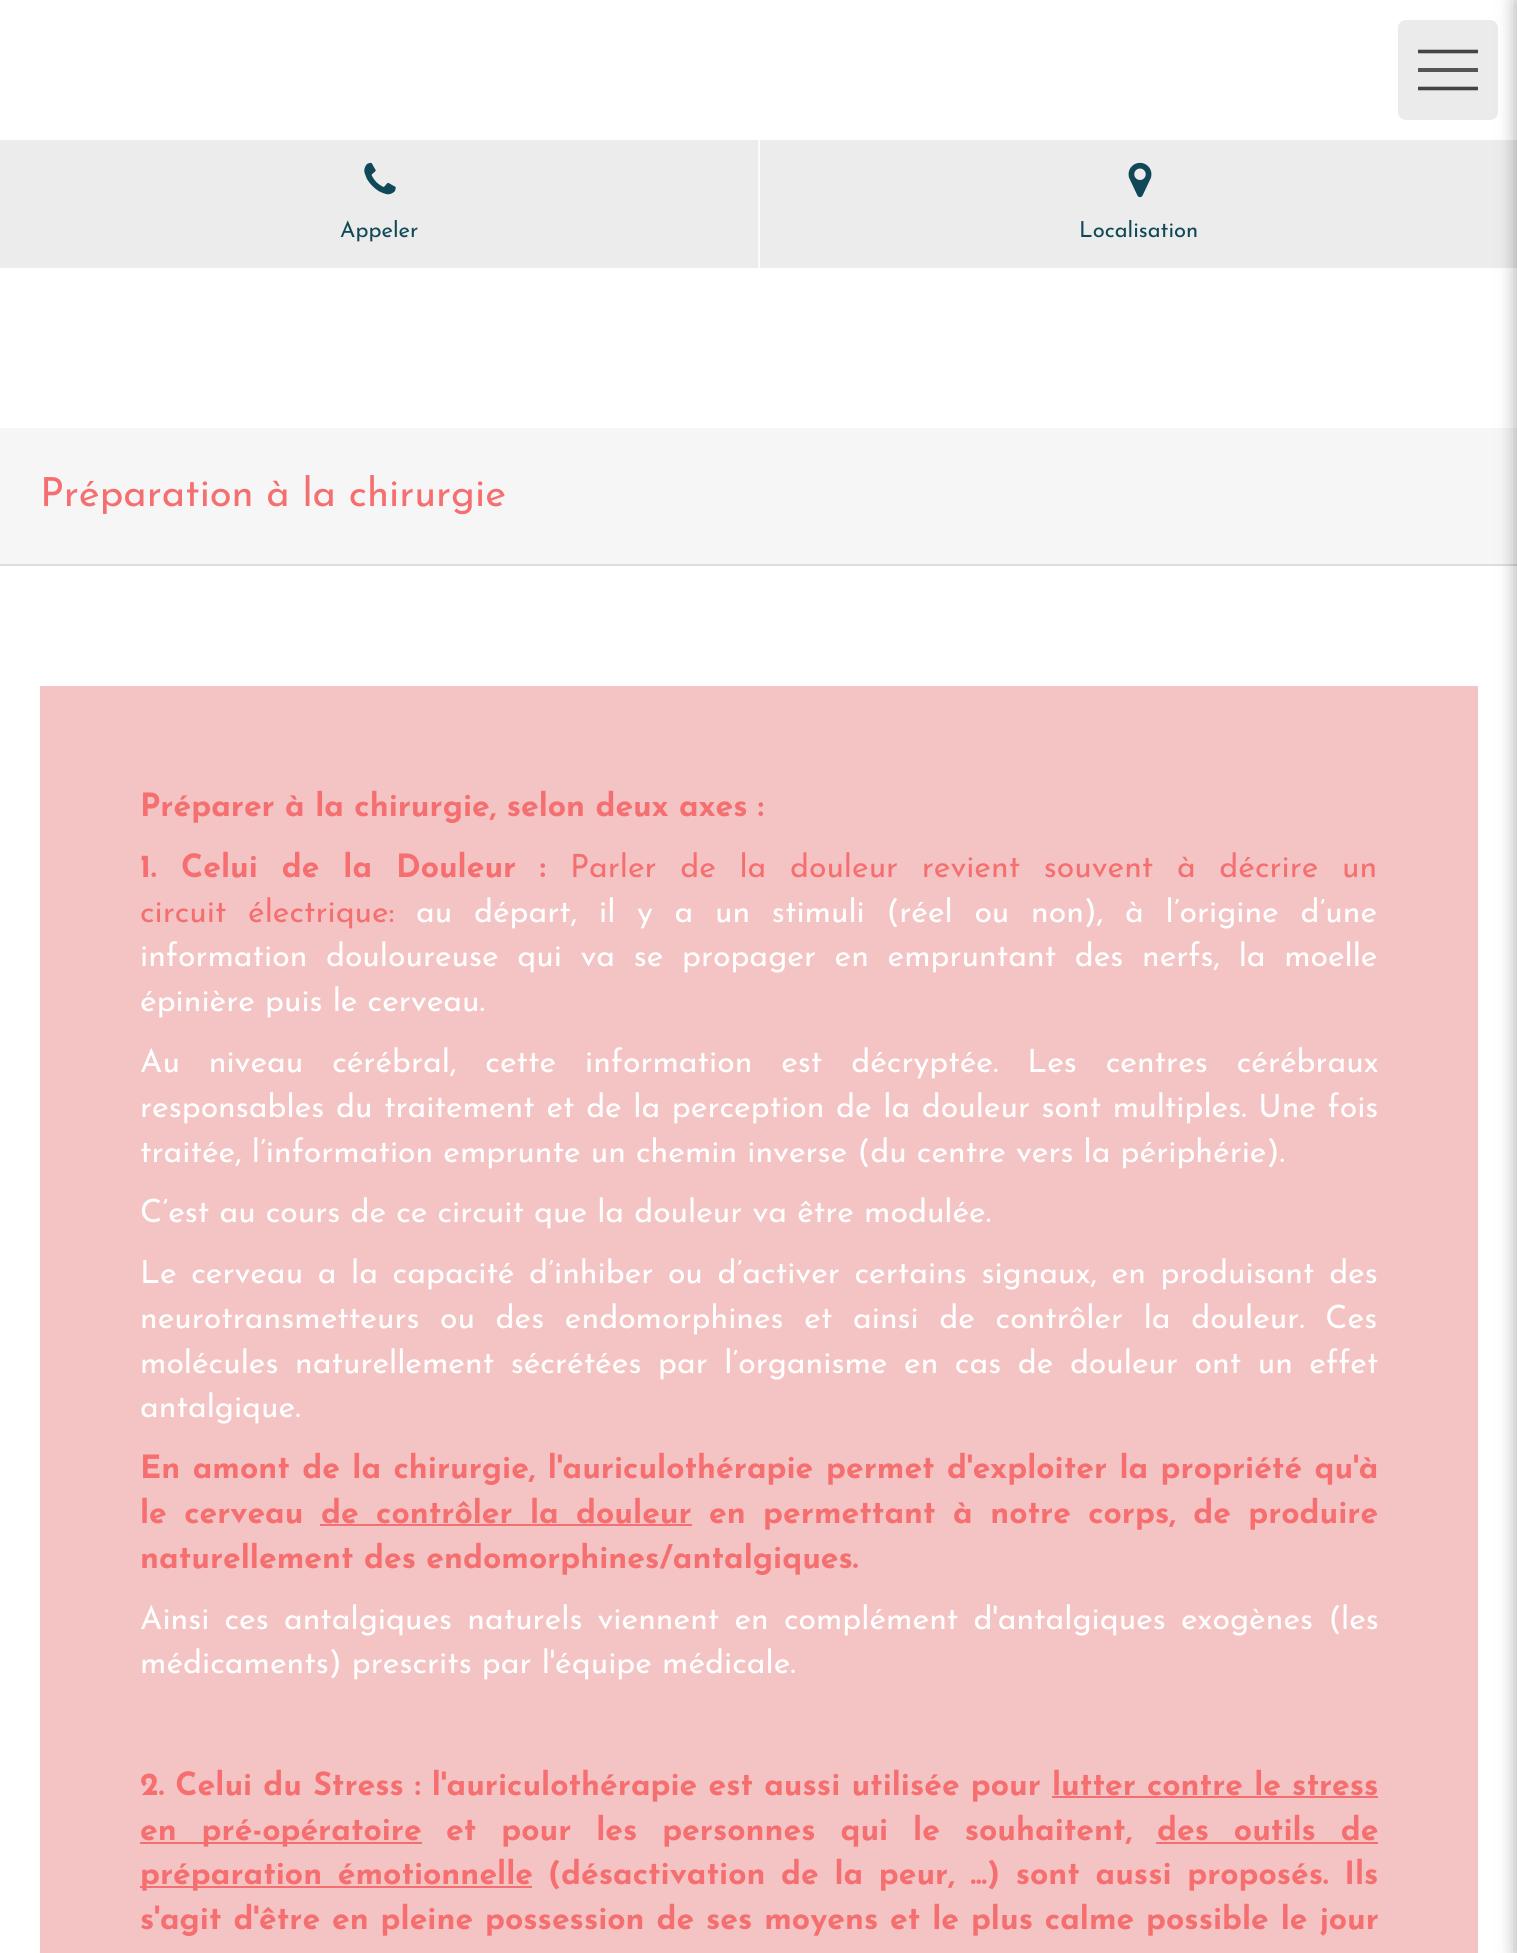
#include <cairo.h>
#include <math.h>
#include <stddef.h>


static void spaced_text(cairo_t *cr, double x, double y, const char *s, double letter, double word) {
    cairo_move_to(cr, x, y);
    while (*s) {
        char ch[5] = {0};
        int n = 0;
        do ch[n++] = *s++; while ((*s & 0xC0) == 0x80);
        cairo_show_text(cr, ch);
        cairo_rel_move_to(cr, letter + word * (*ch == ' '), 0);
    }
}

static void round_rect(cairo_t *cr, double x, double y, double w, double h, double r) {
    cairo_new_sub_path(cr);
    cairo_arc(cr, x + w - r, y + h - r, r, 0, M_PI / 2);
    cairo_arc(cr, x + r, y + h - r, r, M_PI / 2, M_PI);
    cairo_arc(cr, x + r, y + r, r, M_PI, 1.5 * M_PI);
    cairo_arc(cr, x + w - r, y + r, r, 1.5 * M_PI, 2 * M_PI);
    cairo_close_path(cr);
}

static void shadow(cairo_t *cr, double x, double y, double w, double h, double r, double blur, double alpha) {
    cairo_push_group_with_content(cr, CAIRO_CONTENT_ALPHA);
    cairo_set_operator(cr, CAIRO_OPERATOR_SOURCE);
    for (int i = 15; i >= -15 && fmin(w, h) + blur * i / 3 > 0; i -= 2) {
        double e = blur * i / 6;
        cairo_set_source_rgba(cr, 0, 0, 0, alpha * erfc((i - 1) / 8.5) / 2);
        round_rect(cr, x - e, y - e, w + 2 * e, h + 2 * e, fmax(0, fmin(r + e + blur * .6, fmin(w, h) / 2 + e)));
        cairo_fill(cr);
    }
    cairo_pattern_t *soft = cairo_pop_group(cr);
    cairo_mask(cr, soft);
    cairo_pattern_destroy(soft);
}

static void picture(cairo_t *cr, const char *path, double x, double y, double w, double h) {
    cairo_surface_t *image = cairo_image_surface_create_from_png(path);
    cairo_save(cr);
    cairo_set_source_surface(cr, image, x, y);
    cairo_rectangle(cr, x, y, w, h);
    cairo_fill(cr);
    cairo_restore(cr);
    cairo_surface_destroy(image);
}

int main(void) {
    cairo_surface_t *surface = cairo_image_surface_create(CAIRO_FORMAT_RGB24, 1517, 1953);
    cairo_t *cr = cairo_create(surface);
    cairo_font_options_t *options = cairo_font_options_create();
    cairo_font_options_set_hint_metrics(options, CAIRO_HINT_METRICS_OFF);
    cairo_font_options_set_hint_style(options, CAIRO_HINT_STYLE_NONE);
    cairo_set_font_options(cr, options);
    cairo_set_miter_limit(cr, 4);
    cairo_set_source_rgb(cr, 1, 1, 1);
    cairo_paint(cr);
    cairo_set_source_rgb(cr, 0.918, 0.918, 0.918);
    round_rect(cr, 1398, 20, 100, 100, 8);
    cairo_fill(cr);
    cairo_set_source_rgb(cr, 0.333, 0.333, 0.333);
    cairo_rectangle(cr, 1418, 68, 60, 4);
    cairo_fill(cr);
    cairo_new_path(cr);
    cairo_move_to(cr, 1418, 51.5);
    cairo_line_to(cr, 1478, 51.5);
    cairo_move_to(cr, 1418, 88.5);
    cairo_line_to(cr, 1478, 88.5);
    cairo_set_source_rgb(cr, 0.267, 0.267, 0.267);
    cairo_set_line_width(cr, 3.6);
    cairo_stroke(cr);
    cairo_set_source_rgb(cr, 0.922, 0.922, 0.922);
    cairo_rectangle(cr, 0, 140, 1517, 128);
    cairo_fill(cr);
    picture(cr, "img1.png", 364, 162, 32, 33);
    cairo_select_font_face(cr, "Josefin Sans", CAIRO_FONT_SLANT_NORMAL, CAIRO_FONT_WEIGHT_NORMAL);
    cairo_set_font_size(cr, 22);
    cairo_set_source_rgb(cr, 0.063, 0.282, 0.345);
    cairo_move_to(cr, 340, 237);
    cairo_show_text(cr, "Appeler");
    cairo_set_source_rgb(cr, 0.984, 0.984, 0.984);
    cairo_rectangle(cr, 758, 140, 2, 130);
    cairo_fill(cr);
    picture(cr, "img2.png", 1128, 162, 24, 36);
    cairo_set_source_rgb(cr, 0.063, 0.282, 0.345);
    cairo_move_to(cr, 1079, 237);
    cairo_show_text(cr, "Localisation");
    cairo_set_source_rgb(cr, 1, 1, 1);
    cairo_rectangle(cr, 758, 268, 2, 2);
    cairo_fill(cr);
    cairo_set_source_rgb(cr, 0.961, 0.961, 0.961);
    cairo_rectangle(cr, 0, 428, 1517, 136);
    cairo_fill(cr);
    cairo_set_source_rgb(cr, 0.867, 0.867, 0.867);
    cairo_rectangle(cr, 0, 564, 1517, 2);
    cairo_fill(cr);
    cairo_set_font_size(cr, 40);
    cairo_set_source_rgb(cr, 0.961, 0.435, 0.439);
    cairo_move_to(cr, 40, 506);
    cairo_show_text(cr, "Préparation à la chirurgie");
    cairo_set_source_rgb(cr, 0.957, 0.769, 0.769);
    cairo_rectangle(cr, 40, 686, 1438, 1267);
    cairo_fill(cr);
    cairo_select_font_face(cr, "Josefin Sans", CAIRO_FONT_SLANT_NORMAL, CAIRO_FONT_WEIGHT_BOLD);
    cairo_set_font_size(cr, 32);
    cairo_set_source_rgb(cr, 0.961, 0.435, 0.439);
    cairo_move_to(cr, 140, 816);
    cairo_show_text(cr, "Préparer à la chirurgie, selon deux axes :");
    cairo_move_to(cr, 140, 877);
    cairo_show_text(cr, "1.");
    spaced_text(cr, 181, 877, "Celui de la Douleur", 0, 13.5);
    cairo_move_to(cr, 540, 877);
    cairo_show_text(cr, ":");
    cairo_select_font_face(cr, "Josefin Sans", CAIRO_FONT_SLANT_NORMAL, CAIRO_FONT_WEIGHT_NORMAL);
    spaced_text(cr, 570, 877, "Parler de la douleur revient souvent à décrire un", 0, 13.5);
    cairo_move_to(cr, 140, 922);
    cairo_show_text(cr, "circuit");
    cairo_move_to(cr, 248, 922);
    cairo_show_text(cr, "électrique:");
    cairo_set_source_rgb(cr, 1, 1, 1);
    spaced_text(cr, 416, 922, "au départ, il y a un stimuli (réel ou non), à l’origine d’une", 0, 11.6);
    spaced_text(cr, 140, 966, "information douloureuse qui va se propager en empruntant des nerfs, la moelle", 0, 8.5);
    cairo_move_to(cr, 140, 1011);
    cairo_show_text(cr, "épinière puis le cerveau.");
    spaced_text(cr, 140, 1072, "Au niveau cérébral, cette information est décryptée. Les centres cérébraux", 0, 18.75);
    spaced_text(cr, 140, 1117, "responsables du traitement et de la perception de la douleur sont multiples. Une fois", 0, 1.5);
    cairo_move_to(cr, 140, 1162);
    cairo_show_text(cr, "traitée, l’information emprunte un chemin inverse (du centre vers la périphérie).");
    cairo_move_to(cr, 140, 1222);
    cairo_show_text(cr, "C’est au cours de ce circuit que la douleur va être modulée.");
    spaced_text(cr, 140, 1283, "Le cerveau a la capacité d’inhiber ou d’activer certains signaux, en produisant des", 0, 4.5);
    spaced_text(cr, 140, 1328, "neurotransmetteurs ou des endomorphines et ainsi de contrôler la douleur. Ces", 0, 10.5);
    spaced_text(cr, 140, 1373, "molécules naturellement sécrétées par l’organisme en cas de douleur ont un effet", 0, 6.4);
    cairo_move_to(cr, 140, 1417);
    cairo_show_text(cr, "antalgique.");
    cairo_select_font_face(cr, "Josefin Sans", CAIRO_FONT_SLANT_NORMAL, CAIRO_FONT_WEIGHT_BOLD);
    cairo_set_source_rgb(cr, 0.961, 0.435, 0.439);
    spaced_text(cr, 140, 1478, "En amont de la chirurgie, l'auriculothérapie", 0, 2);
    spaced_text(cr, 826, 1478, "permet d'exploiter la propriété qu'à", 0, 2);
    spaced_text(cr, 140, 1523, "le cerveau", 0, 7);
    spaced_text(cr, 321, 1523, "de contrôler la douleur", 0, 7);
    cairo_rectangle(cr, 320, 1524, 372, 2);
    cairo_fill(cr);
    spaced_text(cr, 709, 1523, "en permettant à notre corps, de produire", 0, 7);
    cairo_move_to(cr, 140, 1568);
    cairo_show_text(cr, "naturellement des endomorphines/antalgiques.");
    cairo_select_font_face(cr, "Josefin Sans", CAIRO_FONT_SLANT_NORMAL, CAIRO_FONT_WEIGHT_NORMAL);
    cairo_set_source_rgb(cr, 1, 1, 1);
    spaced_text(cr, 140, 1629, "Ainsi ces antalgiques naturels viennent en complément d'antalgiques exogènes (les", 0, 5);
    cairo_move_to(cr, 140, 1673);
    cairo_show_text(cr, "médicaments) prescrits par l'équipe médicale.");
    cairo_select_font_face(cr, "Josefin Sans", CAIRO_FONT_SLANT_NORMAL, CAIRO_FONT_WEIGHT_BOLD);
    cairo_set_source_rgb(cr, 0.961, 0.435, 0.439);
    spaced_text(cr, 140, 1795, "2. Celui du Stress : l'auriculothérapie est aussi utilisée pour", 0, 0.75);
    spaced_text(cr, 1052, 1795, "lutter contre le stress", 0, 0.75);
    cairo_rectangle(cr, 1052, 1796, 326, 2);
    cairo_fill(cr);
    cairo_rectangle(cr, 140, 1842, 282, 2);
    cairo_fill(cr);
    spaced_text(cr, 140, 1840, "en pré-opératoire", 0, 14.5);
    spaced_text(cr, 446, 1840, "et pour les personnes qui le souhaitent,", 0, 14.5);
    spaced_text(cr, 1157, 1840, "des outils de", 0, 14.5);
    cairo_rectangle(cr, 1156, 1842, 222, 2);
    cairo_fill(cr);
    cairo_rectangle(cr, 140, 1886, 392, 2);
    cairo_fill(cr);
    spaced_text(cr, 140, 1884, "préparation émotionnelle", 0, 5.25);
    spaced_text(cr, 548, 1884, "(désactivation de la peur, ...) sont aussi proposés. Ils", 0, 5.25);
    spaced_text(cr, 140, 1929, "s'agit d'être en pleine possession de ses moyens", 0, 1.5);
    spaced_text(cr, 890, 1929, "et le plus calme possible le jour", 0, 1.5);
    cairo_set_source_rgb(cr, 0, 0, 0);
    shadow(cr, 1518, 0, 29, 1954, 0, 10, 0.4);
    cairo_surface_write_to_png(surface, "page.png");
    cairo_font_options_destroy(options);
    cairo_destroy(cr);
    cairo_surface_destroy(surface);
    return 0;
}
